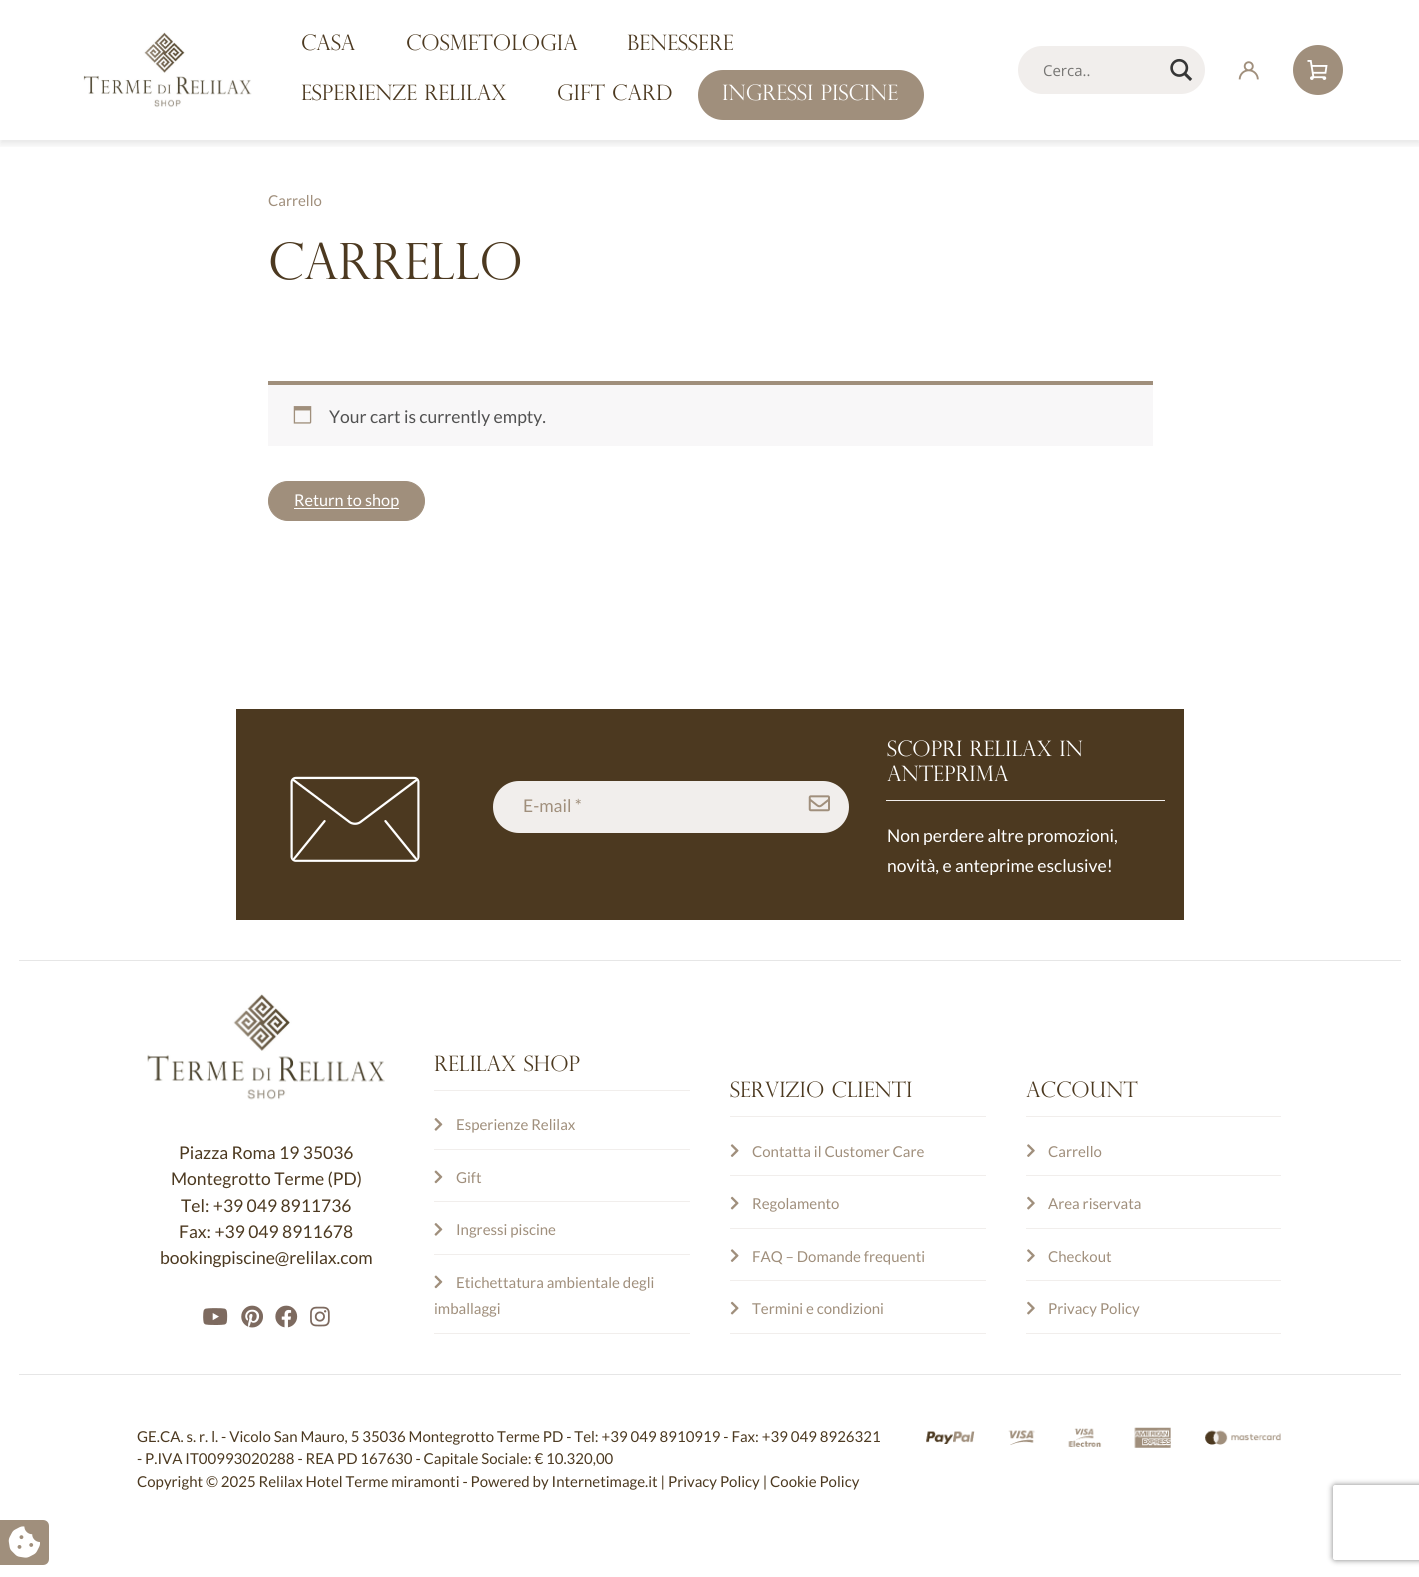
#include <cairo.h>
#include <math.h>
#include <stddef.h>


static void round_rect(cairo_t *cr, double x, double y, double w, double h, double r) {
    cairo_new_sub_path(cr);
    cairo_arc(cr, x + w - r, y + h - r, r, 0, M_PI / 2);
    cairo_arc(cr, x + r, y + h - r, r, M_PI / 2, M_PI);
    cairo_arc(cr, x + r, y + r, r, M_PI, 1.5 * M_PI);
    cairo_arc(cr, x + w - r, y + r, r, 1.5 * M_PI, 2 * M_PI);
    cairo_close_path(cr);
}

static void shadow(cairo_t *cr, double x, double y, double w, double h, double r, double blur, double alpha) {
    cairo_push_group_with_content(cr, CAIRO_CONTENT_ALPHA);
    cairo_set_operator(cr, CAIRO_OPERATOR_SOURCE);
    for (int i = 15; i >= -15 && fmin(w, h) + blur * i / 3 > 0; i -= 2) {
        double e = blur * i / 6;
        cairo_set_source_rgba(cr, 0, 0, 0, alpha * erfc((i - 1) / 8.5) / 2);
        round_rect(cr, x - e, y - e, w + 2 * e, h + 2 * e, fmax(0, fmin(r + e + blur * .6, fmin(w, h) / 2 + e)));
        cairo_fill(cr);
    }
    cairo_pattern_t *soft = cairo_pop_group(cr);
    cairo_mask(cr, soft);
    cairo_pattern_destroy(soft);
}

static void picture(cairo_t *cr, const char *path, double x, double y, double w, double h) {
    cairo_surface_t *image = cairo_image_surface_create_from_png(path);
    cairo_save(cr);
    cairo_set_source_surface(cr, image, x, y);
    cairo_rectangle(cr, x, y, w, h);
    cairo_fill(cr);
    cairo_restore(cr);
    cairo_surface_destroy(image);
}

int main(void) {
    cairo_surface_t *surface = cairo_image_surface_create(CAIRO_FORMAT_RGB24, 1419, 1577);
    cairo_t *cr = cairo_create(surface);
    cairo_font_options_t *options = cairo_font_options_create();
    cairo_font_options_set_hint_metrics(options, CAIRO_HINT_METRICS_OFF);
    cairo_font_options_set_hint_style(options, CAIRO_HINT_STYLE_NONE);
    cairo_set_font_options(cr, options);
    cairo_set_miter_limit(cr, 4);
    cairo_set_source_rgb(cr, 1, 1, 1);
    cairo_paint(cr);
    cairo_save(cr);
    cairo_rectangle(cr, 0, 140, 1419, 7);
    cairo_clip(cr);
    cairo_set_source_rgb(cr, 0, 0, 0);
    shadow(cr, 0, 4, 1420, 140, 0, 4, 0.1);
    cairo_restore(cr);
    picture(cr, "img1.png", 83, 32, 169, 76);
    cairo_select_font_face(cr, "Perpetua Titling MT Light", CAIRO_FONT_SLANT_NORMAL, CAIRO_FONT_WEIGHT_NORMAL);
    cairo_set_font_size(cr, 21.25);
    cairo_set_source_rgb(cr, 0.298, 0.224, 0.125);
    cairo_move_to(cr, 301, 50);
    cairo_show_text(cr, "CASA");
    cairo_move_to(cr, 406, 50);
    cairo_show_text(cr, "COSMETOLOGIA");
    cairo_move_to(cr, 627, 50);
    cairo_show_text(cr, "BENESSERE");
    cairo_move_to(cr, 301, 100);
    cairo_show_text(cr, "ESPERIENZE RELILAX");
    cairo_move_to(cr, 557, 100);
    cairo_show_text(cr, "GIFT CARD");
    cairo_set_source_rgb(cr, 0.627, 0.561, 0.486);
    round_rect(cr, 698, 70, 226, 50, 25);
    cairo_fill(cr);
    cairo_set_source_rgb(cr, 1, 1, 1);
    cairo_move_to(cr, 722, 100);
    cairo_show_text(cr, "INGRESSI PISCINE");
    cairo_set_source_rgb(cr, 0.945, 0.933, 0.922);
    round_rect(cr, 1018, 46, 187, 48, 24);
    cairo_fill(cr);
    cairo_select_font_face(cr, "Open Sans", CAIRO_FONT_SLANT_NORMAL, CAIRO_FONT_WEIGHT_NORMAL);
    cairo_set_font_size(cr, 15);
    cairo_set_source_rgb(cr, 0.463, 0.459, 0.451);
    cairo_move_to(cr, 1043, 76);
    cairo_show_text(cr, "Cerca..");
    picture(cr, "img2.png", 1170, 58, 23, 23);
    picture(cr, "img3.png", 1238, 61, 21, 19);
    cairo_set_source_rgb(cr, 0.627, 0.561, 0.486);
    cairo_arc(cr, 1318, 70, 25, 0, 2 * M_PI);
    cairo_fill(cr);
    picture(cr, "img4.png", 1307, 60, 21, 20);
    cairo_select_font_face(cr, "Lato", CAIRO_FONT_SLANT_NORMAL, CAIRO_FONT_WEIGHT_NORMAL);
    cairo_move_to(cr, 268, 206);
    cairo_show_text(cr, "Carrello");
    cairo_select_font_face(cr, "Perpetua Titling MT Light", CAIRO_FONT_SLANT_NORMAL, CAIRO_FONT_WEIGHT_NORMAL);
    cairo_set_font_size(cr, 50);
    cairo_set_source_rgb(cr, 0.298, 0.224, 0.125);
    cairo_move_to(cr, 268, 279);
    cairo_show_text(cr, "Carrello");
    cairo_set_source_rgb(cr, 0.969, 0.965, 0.969);
    cairo_rectangle(cr, 268, 385, 885, 61);
    cairo_fill(cr);
    cairo_set_source_rgb(cr, 0.627, 0.561, 0.486);
    cairo_rectangle(cr, 268, 381, 885, 4);
    cairo_fill(cr);
    picture(cr, "img5.png", 293, 406, 19, 18);
    cairo_select_font_face(cr, "Lato", CAIRO_FONT_SLANT_NORMAL, CAIRO_FONT_WEIGHT_NORMAL);
    cairo_set_font_size(cr, 17.5);
    cairo_set_source_rgb(cr, 0.318, 0.318, 0.318);
    cairo_move_to(cr, 329, 423);
    cairo_show_text(cr, "Your cart is currently empty.");
    cairo_set_source_rgb(cr, 0.627, 0.561, 0.486);
    round_rect(cr, 268.5, 481.5, 156, 39, 19.5);
    cairo_fill_preserve(cr);
    cairo_set_line_width(cr, 1);
    cairo_stroke(cr);
    cairo_set_source_rgb(cr, 1, 1, 1);
    cairo_rectangle(cr, 294, 508, 105, 1);
    cairo_fill(cr);
    cairo_set_font_size(cr, 16.25);
    cairo_move_to(cr, 294, 506);
    cairo_show_text(cr, "Return to shop");
    cairo_set_source_rgb(cr, 0.298, 0.224, 0.125);
    cairo_rectangle(cr, 236, 709, 948, 211);
    cairo_fill(cr);
    picture(cr, "img6.png", 290, 776, 130, 86);
    cairo_set_source_rgb(cr, 0.945, 0.933, 0.922);
    round_rect(cr, 493, 781, 356, 52, 26);
    cairo_fill(cr);
    cairo_set_font_size(cr, 17.5);
    cairo_set_source_rgb(cr, 0.627, 0.561, 0.486);
    cairo_move_to(cr, 523, 812);
    cairo_show_text(cr, "E-mail *");
    picture(cr, "img7.png", 808, 795, 22, 17);
    cairo_set_source_rgb(cr, 0.945, 0.933, 0.922);
    cairo_rectangle(cr, 886, 800, 279, 1);
    cairo_fill(cr);
    cairo_select_font_face(cr, "Perpetua Titling MT Light", CAIRO_FONT_SLANT_NORMAL, CAIRO_FONT_WEIGHT_NORMAL);
    cairo_set_font_size(cr, 21.25);
    cairo_set_source_rgb(cr, 1, 1, 1);
    cairo_move_to(cr, 887, 756);
    cairo_show_text(cr, "Scopri Relilax in");
    cairo_move_to(cr, 887, 781);
    cairo_show_text(cr, "anteprima");
    cairo_select_font_face(cr, "Lato", CAIRO_FONT_SLANT_NORMAL, CAIRO_FONT_WEIGHT_NORMAL);
    cairo_set_font_size(cr, 17.5);
    cairo_move_to(cr, 887, 842);
    cairo_show_text(cr, "Non perdere altre promozioni,");
    cairo_move_to(cr, 887, 872);
    cairo_show_text(cr, "novità, e anteprime esclusive!");
    cairo_set_source_rgb(cr, 0.902, 0.902, 0.902);
    cairo_rectangle(cr, 19, 960, 1382, 1);
    cairo_fill(cr);
    picture(cr, "img8.png", 147, 994, 238, 106);
    cairo_set_source_rgb(cr, 0.298, 0.224, 0.125);
    cairo_move_to(cr, 179, 1159);
    cairo_show_text(cr, "Piazza Roma 19 35036");
    cairo_move_to(cr, 171, 1185);
    cairo_show_text(cr, "Montegrotto Terme (PD)");
    cairo_move_to(cr, 181, 1212);
    cairo_show_text(cr, "Tel: +39 049 8911736");
    cairo_move_to(cr, 179, 1238);
    cairo_show_text(cr, "Fax: +39 049 8911678");
    cairo_move_to(cr, 160, 1264);
    cairo_show_text(cr, "bookingpiscine@relilax.com");
    picture(cr, "img9.png", 203, 1308, 25, 17);
    picture(cr, "img10.png", 241, 1305, 22, 23);
    picture(cr, "img11.png", 275, 1305, 23, 23);
    picture(cr, "img12.png", 310, 1306, 20, 21);
    cairo_set_source_rgb(cr, 0.945, 0.933, 0.922);
    cairo_rectangle(cr, 434, 1090, 256, 1);
    cairo_fill(cr);
    cairo_select_font_face(cr, "Perpetua Titling MT Light", CAIRO_FONT_SLANT_NORMAL, CAIRO_FONT_WEIGHT_NORMAL);
    cairo_set_font_size(cr, 21.25);
    cairo_set_source_rgb(cr, 0.298, 0.224, 0.125);
    cairo_move_to(cr, 434, 1071);
    cairo_show_text(cr, "Relilax Shop");
    cairo_set_source_rgb(cr, 0.945, 0.933, 0.922);
    cairo_rectangle(cr, 434, 1149, 256, 1);
    cairo_fill(cr);
    picture(cr, "img13.png", 434, 1118, 9, 13);
    cairo_select_font_face(cr, "Lato", CAIRO_FONT_SLANT_NORMAL, CAIRO_FONT_WEIGHT_NORMAL);
    cairo_set_font_size(cr, 15);
    cairo_set_source_rgb(cr, 0.627, 0.561, 0.486);
    cairo_move_to(cr, 456, 1130);
    cairo_show_text(cr, "Esperienze Relilax");
    cairo_set_source_rgb(cr, 0.945, 0.933, 0.922);
    cairo_rectangle(cr, 434, 1201, 256, 1);
    cairo_fill(cr);
    picture(cr, "img14.png", 434, 1170, 9, 14);
    cairo_set_source_rgb(cr, 0.627, 0.561, 0.486);
    cairo_move_to(cr, 456, 1183);
    cairo_show_text(cr, "Gift");
    cairo_set_source_rgb(cr, 0.945, 0.933, 0.922);
    cairo_rectangle(cr, 434, 1254, 256, 1);
    cairo_fill(cr);
    picture(cr, "img13.png", 434, 1223, 9, 13);
    cairo_set_source_rgb(cr, 0.627, 0.561, 0.486);
    cairo_move_to(cr, 456, 1235);
    cairo_show_text(cr, "Ingressi piscine");
    cairo_set_source_rgb(cr, 0.945, 0.933, 0.922);
    cairo_rectangle(cr, 434, 1333, 256, 1);
    cairo_fill(cr);
    picture(cr, "img14.png", 434, 1275, 9, 14);
    cairo_set_source_rgb(cr, 0.627, 0.561, 0.486);
    cairo_move_to(cr, 456, 1288);
    cairo_show_text(cr, "Etichettatura ambientale degli");
    cairo_move_to(cr, 434, 1314);
    cairo_show_text(cr, "imballaggi");
    cairo_set_source_rgb(cr, 0.945, 0.933, 0.922);
    cairo_rectangle(cr, 730, 1116, 256, 1);
    cairo_fill(cr);
    cairo_select_font_face(cr, "Perpetua Titling MT Light", CAIRO_FONT_SLANT_NORMAL, CAIRO_FONT_WEIGHT_NORMAL);
    cairo_set_font_size(cr, 21.25);
    cairo_set_source_rgb(cr, 0.298, 0.224, 0.125);
    cairo_move_to(cr, 730, 1097);
    cairo_show_text(cr, "Servizio clienti");
    cairo_set_source_rgb(cr, 0.945, 0.933, 0.922);
    cairo_rectangle(cr, 730, 1175, 256, 1);
    cairo_fill(cr);
    picture(cr, "img15.png", 730, 1144, 9, 13);
    cairo_select_font_face(cr, "Lato", CAIRO_FONT_SLANT_NORMAL, CAIRO_FONT_WEIGHT_NORMAL);
    cairo_set_font_size(cr, 15);
    cairo_set_source_rgb(cr, 0.627, 0.561, 0.486);
    cairo_move_to(cr, 752, 1157);
    cairo_show_text(cr, "Contatta il Customer Care");
    cairo_set_source_rgb(cr, 0.945, 0.933, 0.922);
    cairo_rectangle(cr, 730, 1228, 256, 1);
    cairo_fill(cr);
    picture(cr, "img16.png", 730, 1196, 9, 14);
    cairo_set_source_rgb(cr, 0.627, 0.561, 0.486);
    cairo_move_to(cr, 752, 1209);
    cairo_show_text(cr, "Regolamento");
    cairo_set_source_rgb(cr, 0.945, 0.933, 0.922);
    cairo_rectangle(cr, 730, 1280, 256, 1);
    cairo_fill(cr);
    picture(cr, "img15.png", 730, 1249, 9, 13);
    cairo_set_source_rgb(cr, 0.627, 0.561, 0.486);
    cairo_move_to(cr, 752, 1262);
    cairo_show_text(cr, "FAQ – Domande frequenti");
    cairo_set_source_rgb(cr, 0.945, 0.933, 0.922);
    cairo_rectangle(cr, 730, 1333, 256, 1);
    cairo_fill(cr);
    picture(cr, "img16.png", 730, 1301, 9, 14);
    cairo_set_source_rgb(cr, 0.627, 0.561, 0.486);
    cairo_move_to(cr, 752, 1314);
    cairo_show_text(cr, "Termini e condizioni");
    cairo_set_source_rgb(cr, 0.945, 0.933, 0.922);
    cairo_rectangle(cr, 1026, 1116, 255, 1);
    cairo_fill(cr);
    cairo_select_font_face(cr, "Perpetua Titling MT Light", CAIRO_FONT_SLANT_NORMAL, CAIRO_FONT_WEIGHT_NORMAL);
    cairo_set_font_size(cr, 21.25);
    cairo_set_source_rgb(cr, 0.298, 0.224, 0.125);
    cairo_move_to(cr, 1026, 1097);
    cairo_show_text(cr, "Account");
    cairo_set_source_rgb(cr, 0.945, 0.933, 0.922);
    cairo_rectangle(cr, 1026, 1175, 255, 1);
    cairo_fill(cr);
    picture(cr, "img17.png", 1027, 1144, 8, 13);
    cairo_select_font_face(cr, "Lato", CAIRO_FONT_SLANT_NORMAL, CAIRO_FONT_WEIGHT_NORMAL);
    cairo_set_font_size(cr, 15);
    cairo_set_source_rgb(cr, 0.627, 0.561, 0.486);
    cairo_move_to(cr, 1048, 1157);
    cairo_show_text(cr, "Carrello");
    cairo_set_source_rgb(cr, 0.945, 0.933, 0.922);
    cairo_rectangle(cr, 1026, 1228, 255, 1);
    cairo_fill(cr);
    picture(cr, "img18.png", 1027, 1196, 8, 14);
    cairo_set_source_rgb(cr, 0.627, 0.561, 0.486);
    cairo_move_to(cr, 1048, 1209);
    cairo_show_text(cr, "Area riservata");
    cairo_set_source_rgb(cr, 0.945, 0.933, 0.922);
    cairo_rectangle(cr, 1026, 1280, 255, 1);
    cairo_fill(cr);
    picture(cr, "img17.png", 1027, 1249, 8, 13);
    cairo_set_source_rgb(cr, 0.627, 0.561, 0.486);
    cairo_move_to(cr, 1048, 1262);
    cairo_show_text(cr, "Checkout");
    cairo_set_source_rgb(cr, 0.945, 0.933, 0.922);
    cairo_rectangle(cr, 1026, 1333, 255, 1);
    cairo_fill(cr);
    picture(cr, "img18.png", 1027, 1301, 8, 14);
    cairo_set_source_rgb(cr, 0.627, 0.561, 0.486);
    cairo_move_to(cr, 1048, 1314);
    cairo_show_text(cr, "Privacy Policy");
    cairo_set_source_rgb(cr, 0.902, 0.902, 0.902);
    cairo_rectangle(cr, 19, 1374, 1382, 1);
    cairo_fill(cr);
    cairo_set_source_rgb(cr, 0.298, 0.224, 0.125);
    cairo_move_to(cr, 137, 1442);
    cairo_show_text(cr, "GE.CA. s. r. l. - Vicolo San Mauro, 5 35036 Montegrotto Terme PD - Tel: +39 049 8910919 - Fax: +39 049 8926321");
    cairo_move_to(cr, 137, 1464);
    cairo_show_text(cr, "- P.IVA IT00993020288 - REA PD 167630 - Capitale Sociale: € 10.320,00");
    cairo_move_to(cr, 137, 1487);
    cairo_show_text(cr, "Copyright © 2025 Relilax Hotel Terme miramonti - Powered by Internetimage.it | Privacy Policy | Cookie Policy");
    picture(cr, "img19.png", 926, 1427, 355, 21);
    cairo_set_source_rgb(cr, 0.627, 0.561, 0.486);
    cairo_new_path(cr);
    cairo_move_to(cr, 0, 1520);
    cairo_line_to(cr, 43, 1520);
    cairo_curve_to(cr, 46.5, 1520, 49, 1522.5, 49, 1526);
    cairo_line_to(cr, 49, 1559);
    cairo_curve_to(cr, 49, 1562.5, 46.5, 1565, 43, 1565);
    cairo_line_to(cr, 0, 1565);
    cairo_close_path(cr);
    cairo_fill(cr);
    picture(cr, "img20.png", 8, 1526, 32, 32);
    cairo_save(cr);
    cairo_set_fill_rule(cr, CAIRO_FILL_RULE_EVEN_ODD);
    cairo_new_path(cr);
    cairo_move_to(cr, 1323, 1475);
    cairo_line_to(cr, 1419, 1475);
    cairo_line_to(cr, 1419, 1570);
    cairo_line_to(cr, 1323, 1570);
    cairo_close_path(cr);
    cairo_move_to(cr, 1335.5, 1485);
    cairo_line_to(cr, 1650.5, 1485);
    cairo_curve_to(cr, 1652, 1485, 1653, 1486, 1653, 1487.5);
    cairo_line_to(cr, 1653, 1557.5);
    cairo_curve_to(cr, 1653, 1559, 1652, 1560, 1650.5, 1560);
    cairo_line_to(cr, 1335.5, 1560);
    cairo_curve_to(cr, 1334, 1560, 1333, 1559, 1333, 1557.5);
    cairo_line_to(cr, 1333, 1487.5);
    cairo_curve_to(cr, 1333, 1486, 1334, 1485, 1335.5, 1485);
    cairo_close_path(cr);
    cairo_clip(cr);
    cairo_set_source_rgb(cr, 0.502, 0.502, 0.502);
    shadow(cr, 1333, 1485, 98, 75, 2.5, 3, 1);
    cairo_restore(cr);
    cairo_surface_write_to_png(surface, "page.png");
    cairo_font_options_destroy(options);
    cairo_destroy(cr);
    cairo_surface_destroy(surface);
    return 0;
}
